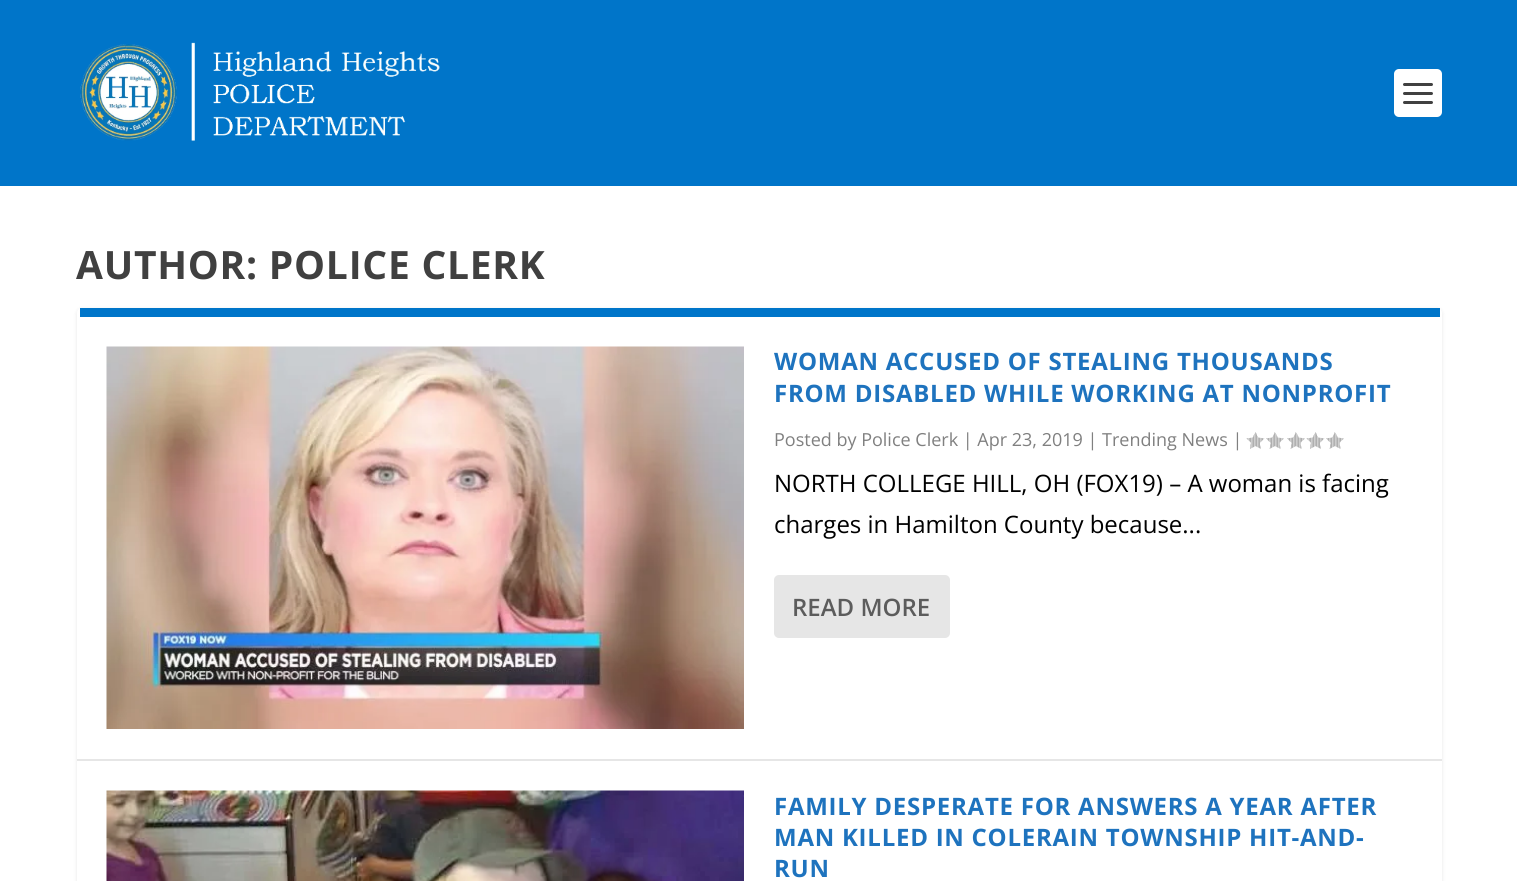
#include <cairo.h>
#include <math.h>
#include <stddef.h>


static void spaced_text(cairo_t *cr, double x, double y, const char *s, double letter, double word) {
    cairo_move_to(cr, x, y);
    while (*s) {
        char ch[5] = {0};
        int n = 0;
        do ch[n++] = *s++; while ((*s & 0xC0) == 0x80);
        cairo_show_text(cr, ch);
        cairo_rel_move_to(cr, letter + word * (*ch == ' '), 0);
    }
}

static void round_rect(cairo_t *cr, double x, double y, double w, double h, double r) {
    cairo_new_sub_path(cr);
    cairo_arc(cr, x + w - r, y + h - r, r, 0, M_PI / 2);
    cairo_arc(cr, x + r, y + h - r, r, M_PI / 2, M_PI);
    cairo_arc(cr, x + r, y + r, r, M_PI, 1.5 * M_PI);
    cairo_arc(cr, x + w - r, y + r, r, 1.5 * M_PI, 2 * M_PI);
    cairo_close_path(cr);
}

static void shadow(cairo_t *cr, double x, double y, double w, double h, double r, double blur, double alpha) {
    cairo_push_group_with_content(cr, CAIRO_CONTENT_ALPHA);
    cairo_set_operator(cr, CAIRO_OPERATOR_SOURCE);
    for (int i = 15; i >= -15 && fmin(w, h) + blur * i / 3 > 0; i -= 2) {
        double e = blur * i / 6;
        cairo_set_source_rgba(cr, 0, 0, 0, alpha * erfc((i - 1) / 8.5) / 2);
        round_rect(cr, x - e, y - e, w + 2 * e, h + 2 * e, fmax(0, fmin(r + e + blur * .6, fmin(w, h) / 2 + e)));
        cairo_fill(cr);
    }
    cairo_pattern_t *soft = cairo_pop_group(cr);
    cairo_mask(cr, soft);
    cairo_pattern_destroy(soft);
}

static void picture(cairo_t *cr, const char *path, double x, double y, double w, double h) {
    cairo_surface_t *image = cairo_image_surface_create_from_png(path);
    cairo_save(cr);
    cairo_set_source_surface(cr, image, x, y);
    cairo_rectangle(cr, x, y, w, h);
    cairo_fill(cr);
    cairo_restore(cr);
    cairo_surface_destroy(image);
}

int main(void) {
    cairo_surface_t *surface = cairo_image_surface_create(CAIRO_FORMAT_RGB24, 1517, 881);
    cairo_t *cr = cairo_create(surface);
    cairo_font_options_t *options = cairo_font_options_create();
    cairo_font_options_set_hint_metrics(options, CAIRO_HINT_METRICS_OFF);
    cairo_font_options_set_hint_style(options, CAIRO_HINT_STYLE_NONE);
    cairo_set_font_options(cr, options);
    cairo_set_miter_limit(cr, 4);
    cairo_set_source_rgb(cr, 1, 1, 1);
    cairo_paint(cr);
    cairo_set_source_rgb(cr, 0, 0.459, 0.788);
    cairo_rectangle(cr, 0, 0, 1517, 186);
    cairo_fill(cr);
    picture(cr, "img1.png", 80, 42, 360, 99);
    cairo_set_source_rgb(cr, 1, 1, 1);
    round_rect(cr, 1394, 69, 48, 48, 5);
    cairo_fill(cr);
    cairo_set_source_rgb(cr, 0.251, 0.251, 0.251);
    round_rect(cr, 1403, 83, 30, 3, 1.5);
    cairo_fill(cr);
    round_rect(cr, 1403, 92, 30, 3, 1.5);
    cairo_fill(cr);
    round_rect(cr, 1403, 101, 30, 3, 1.5);
    cairo_fill(cr);
    cairo_select_font_face(cr, "Open Sans", CAIRO_FONT_SLANT_NORMAL, CAIRO_FONT_WEIGHT_BOLD);
    cairo_set_font_size(cr, 39);
    spaced_text(cr, 76, 279, "AUTHOR: POLICE CLERK", 0.75, 0);
    cairo_set_source_rgb(cr, 0, 0, 0);
    shadow(cr, 77, 309, 1365, 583, 5, 2, 0.1);
    cairo_set_source_rgb(cr, 1, 1, 1);
    round_rect(cr, 77, 308, 1365, 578, 5);
    cairo_fill(cr);
    cairo_set_source_rgb(cr, 0, 0.459, 0.788);
    cairo_rectangle(cr, 80, 308, 1360, 9);
    cairo_fill(cr);
    cairo_set_source_rgb(cr, 0.902, 0.902, 0.902);
    cairo_rectangle(cr, 77, 759, 1365, 2);
    cairo_fill(cr);
    picture(cr, "img2.png", 106, 346, 638, 383);
    cairo_set_font_size(cr, 24);
    cairo_set_source_rgb(cr, 0.118, 0.451, 0.745);
    spaced_text(cr, 774, 370, "WOMAN ACCUSED OF STEALING THOUSANDS", 0.75, 0);
    spaced_text(cr, 774, 402, "FROM DISABLED WHILE WORKING AT NONPROFIT", 0.75, 0);
    cairo_select_font_face(cr, "Open Sans", CAIRO_FONT_SLANT_NORMAL, CAIRO_FONT_WEIGHT_NORMAL);
    cairo_set_font_size(cr, 18);
    cairo_set_source_rgb(cr, 0.502, 0.502, 0.502);
    cairo_move_to(cr, 774, 446);
    cairo_show_text(cr, "Posted by Police Clerk | Apr 23, 2019 | Trending News |");
    picture(cr, "img3.png", 1246, 432, 19, 17);
    picture(cr, "img4.png", 1266, 432, 18, 17);
    picture(cr, "img4.png", 1287, 432, 18, 17);
    picture(cr, "img3.png", 1306, 432, 19, 17);
    picture(cr, "img4.png", 1326, 432, 18, 17);
    cairo_set_font_size(cr, 24);
    cairo_set_source_rgb(cr, 0, 0, 0);
    cairo_move_to(cr, 774, 492);
    cairo_show_text(cr, "NORTH COLLEGE HILL, OH (FOX19) – A woman is facing");
    cairo_move_to(cr, 774, 533);
    cairo_show_text(cr, "charges in Hamilton County because...");
    cairo_set_source_rgb(cr, 0.902, 0.902, 0.902);
    round_rect(cr, 774, 575, 176, 63, 5);
    cairo_fill(cr);
    cairo_select_font_face(cr, "Open Sans SemiBold", CAIRO_FONT_SLANT_NORMAL, CAIRO_FONT_WEIGHT_NORMAL);
    cairo_set_source_rgb(cr, 0.361, 0.361, 0.361);
    cairo_move_to(cr, 792, 616);
    cairo_show_text(cr, "READ MORE");
    picture(cr, "img5.png", 106, 790, 638, 91);
    cairo_select_font_face(cr, "Open Sans", CAIRO_FONT_SLANT_NORMAL, CAIRO_FONT_WEIGHT_BOLD);
    cairo_set_source_rgb(cr, 0.118, 0.451, 0.745);
    spaced_text(cr, 774, 815, "FAMILY DESPERATE FOR ANSWERS A YEAR AFTER", 0.75, 0);
    spaced_text(cr, 774, 846, "MAN KILLED IN COLERAIN TOWNSHIP HIT-AND-", 0.75, 0);
    spaced_text(cr, 774, 877, "RUN", 0.75, 0);
    cairo_surface_write_to_png(surface, "page.png");
    cairo_font_options_destroy(options);
    cairo_destroy(cr);
    cairo_surface_destroy(surface);
    return 0;
}
